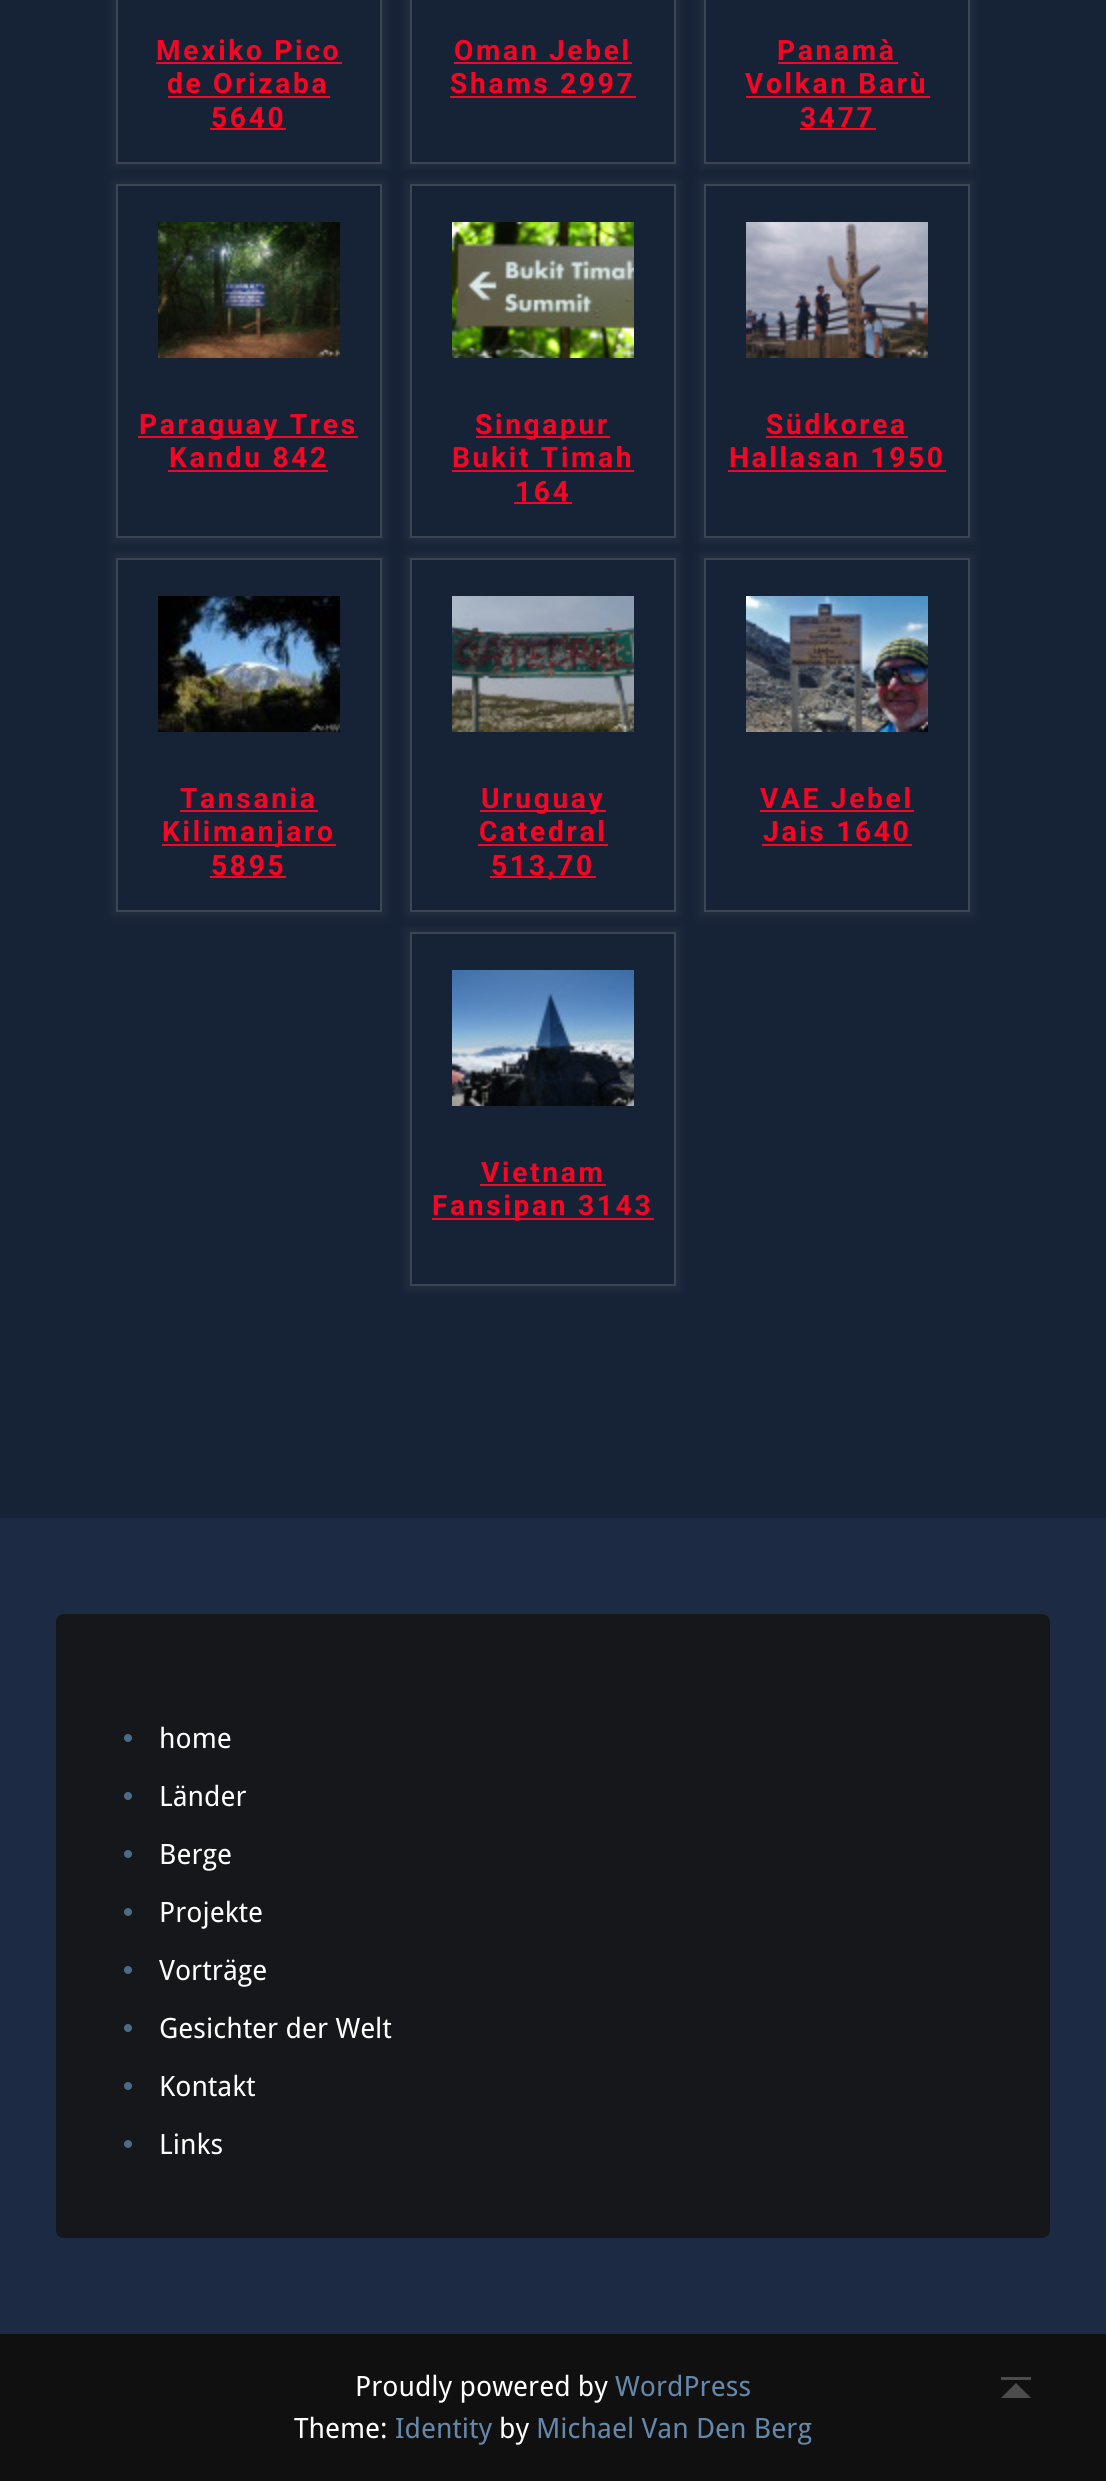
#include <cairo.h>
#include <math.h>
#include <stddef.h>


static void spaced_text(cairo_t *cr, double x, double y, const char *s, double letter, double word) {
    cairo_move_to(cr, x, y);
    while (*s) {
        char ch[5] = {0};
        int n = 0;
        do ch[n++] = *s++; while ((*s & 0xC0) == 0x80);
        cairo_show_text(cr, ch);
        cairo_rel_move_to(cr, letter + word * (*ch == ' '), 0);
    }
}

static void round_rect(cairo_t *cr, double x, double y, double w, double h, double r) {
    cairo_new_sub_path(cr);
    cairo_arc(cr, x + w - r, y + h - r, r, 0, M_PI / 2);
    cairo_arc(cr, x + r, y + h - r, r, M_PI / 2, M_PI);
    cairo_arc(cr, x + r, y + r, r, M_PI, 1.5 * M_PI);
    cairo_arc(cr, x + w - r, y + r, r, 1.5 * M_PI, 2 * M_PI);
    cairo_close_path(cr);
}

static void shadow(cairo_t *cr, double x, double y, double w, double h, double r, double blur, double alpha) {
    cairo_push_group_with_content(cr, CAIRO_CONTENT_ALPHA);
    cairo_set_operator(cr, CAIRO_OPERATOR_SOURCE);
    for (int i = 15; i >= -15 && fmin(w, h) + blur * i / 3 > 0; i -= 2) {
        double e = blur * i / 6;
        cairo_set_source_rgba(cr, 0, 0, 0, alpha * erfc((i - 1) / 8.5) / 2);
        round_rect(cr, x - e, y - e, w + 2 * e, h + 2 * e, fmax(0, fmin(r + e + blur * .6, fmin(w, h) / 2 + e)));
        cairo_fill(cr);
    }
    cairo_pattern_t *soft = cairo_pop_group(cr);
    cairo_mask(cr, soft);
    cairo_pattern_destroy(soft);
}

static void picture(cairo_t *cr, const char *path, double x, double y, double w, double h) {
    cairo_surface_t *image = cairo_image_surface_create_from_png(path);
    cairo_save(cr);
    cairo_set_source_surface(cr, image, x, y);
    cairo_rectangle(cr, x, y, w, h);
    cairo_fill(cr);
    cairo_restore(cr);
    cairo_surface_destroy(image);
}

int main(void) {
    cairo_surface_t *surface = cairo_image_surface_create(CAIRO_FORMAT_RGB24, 1106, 2481);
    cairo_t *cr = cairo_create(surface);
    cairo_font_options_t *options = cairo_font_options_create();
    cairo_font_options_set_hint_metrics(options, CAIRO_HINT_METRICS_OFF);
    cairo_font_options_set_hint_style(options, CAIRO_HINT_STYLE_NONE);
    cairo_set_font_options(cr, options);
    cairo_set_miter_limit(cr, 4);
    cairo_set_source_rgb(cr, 0.11, 0.165, 0.263);
    cairo_paint(cr);
    cairo_set_source_rgb(cr, 0.086, 0.133, 0.212);
    cairo_rectangle(cr, 0, 0, 1106, 1518);
    cairo_fill(cr);
    cairo_save(cr);
    cairo_set_fill_rule(cr, CAIRO_FILL_RULE_EVEN_ODD);
    cairo_new_path(cr);
    cairo_move_to(cr, 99, 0);
    cairo_line_to(cr, 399, 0);
    cairo_line_to(cr, 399, 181);
    cairo_line_to(cr, 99, 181);
    cairo_close_path(cr);
    cairo_move_to(cr, 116, -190);
    cairo_line_to(cr, 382, -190);
    cairo_line_to(cr, 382, 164);
    cairo_line_to(cr, 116, 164);
    cairo_close_path(cr);
    cairo_clip(cr);
    cairo_set_source_rgb(cr, 0.588, 0.588, 0.588);
    shadow(cr, 112, -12, 274, 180, 0, 4, 0.1);
    cairo_restore(cr);
    cairo_rectangle(cr, 117, -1, 264, 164);
    cairo_set_source_rgb(cr, 0.235, 0.271, 0.325);
    cairo_stroke(cr);
    cairo_select_font_face(cr, "Roboto", CAIRO_FONT_SLANT_NORMAL, CAIRO_FONT_WEIGHT_BOLD);
    cairo_set_font_size(cr, 28);
    cairo_set_source_rgb(cr, 0.965, 0.02, 0.145);
    spaced_text(cr, 156, 60, "Mexiko Pico", 2.75, 0);
    cairo_rectangle(cr, 156, 62, 186, 2);
    cairo_fill(cr);
    spaced_text(cr, 167, 93, "de Orizaba", 2.75, 0);
    cairo_rectangle(cr, 168, 96, 162, 2);
    cairo_fill(cr);
    spaced_text(cr, 211, 127, "5640", 2.75, 0);
    cairo_rectangle(cr, 210, 128, 76, 2);
    cairo_fill(cr);
    cairo_save(cr);
    cairo_set_fill_rule(cr, CAIRO_FILL_RULE_EVEN_ODD);
    cairo_new_path(cr);
    cairo_move_to(cr, 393, 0);
    cairo_line_to(cr, 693, 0);
    cairo_line_to(cr, 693, 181);
    cairo_line_to(cr, 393, 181);
    cairo_close_path(cr);
    cairo_move_to(cr, 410, -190);
    cairo_line_to(cr, 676, -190);
    cairo_line_to(cr, 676, 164);
    cairo_line_to(cr, 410, 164);
    cairo_close_path(cr);
    cairo_clip(cr);
    cairo_set_source_rgb(cr, 0.588, 0.588, 0.588);
    shadow(cr, 406, -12, 274, 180, 0, 4, 0.1);
    cairo_restore(cr);
    cairo_rectangle(cr, 411, -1, 264, 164);
    cairo_set_source_rgb(cr, 0.235, 0.271, 0.325);
    cairo_stroke(cr);
    cairo_set_source_rgb(cr, 0.965, 0.02, 0.145);
    spaced_text(cr, 454, 60, "Oman Jebel", 2.75, 0);
    cairo_rectangle(cr, 454, 62, 178, 2);
    cairo_fill(cr);
    spaced_text(cr, 450, 93, "Shams 2997", 2.75, 0);
    cairo_rectangle(cr, 450, 96, 186, 2);
    cairo_fill(cr);
    cairo_save(cr);
    cairo_set_fill_rule(cr, CAIRO_FILL_RULE_EVEN_ODD);
    cairo_new_path(cr);
    cairo_move_to(cr, 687, 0);
    cairo_line_to(cr, 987, 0);
    cairo_line_to(cr, 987, 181);
    cairo_line_to(cr, 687, 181);
    cairo_close_path(cr);
    cairo_move_to(cr, 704, -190);
    cairo_line_to(cr, 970, -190);
    cairo_line_to(cr, 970, 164);
    cairo_line_to(cr, 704, 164);
    cairo_close_path(cr);
    cairo_clip(cr);
    cairo_set_source_rgb(cr, 0.588, 0.588, 0.588);
    shadow(cr, 700, -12, 274, 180, 0, 4, 0.1);
    cairo_restore(cr);
    cairo_rectangle(cr, 705, -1, 264, 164);
    cairo_set_source_rgb(cr, 0.235, 0.271, 0.325);
    cairo_stroke(cr);
    cairo_set_source_rgb(cr, 0.965, 0.02, 0.145);
    spaced_text(cr, 777, 60, "Panamà", 2.75, 0);
    cairo_rectangle(cr, 778, 62, 120, 2);
    cairo_fill(cr);
    spaced_text(cr, 745, 93, "Volkan Barù", 2.75, 0);
    cairo_rectangle(cr, 746, 96, 184, 2);
    cairo_fill(cr);
    spaced_text(cr, 800, 127, "3477", 2.75, 0);
    cairo_rectangle(cr, 800, 128, 76, 2);
    cairo_fill(cr);
    cairo_save(cr);
    cairo_set_fill_rule(cr, CAIRO_FILL_RULE_EVEN_ODD);
    cairo_new_path(cr);
    cairo_move_to(cr, 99, 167);
    cairo_line_to(cr, 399, 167);
    cairo_line_to(cr, 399, 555);
    cairo_line_to(cr, 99, 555);
    cairo_close_path(cr);
    cairo_move_to(cr, 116, 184);
    cairo_line_to(cr, 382, 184);
    cairo_line_to(cr, 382, 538);
    cairo_line_to(cr, 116, 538);
    cairo_close_path(cr);
    cairo_clip(cr);
    cairo_set_source_rgb(cr, 0.588, 0.588, 0.588);
    shadow(cr, 112, 180, 274, 362, 0, 4, 0.1);
    cairo_restore(cr);
    cairo_rectangle(cr, 117, 185, 264, 352);
    cairo_set_source_rgb(cr, 0.235, 0.271, 0.325);
    cairo_stroke(cr);
    picture(cr, "img1.png", 158, 222, 182, 136);
    cairo_set_source_rgb(cr, 0.965, 0.02, 0.145);
    cairo_rectangle(cr, 138, 436, 220, 2);
    cairo_fill(cr);
    spaced_text(cr, 139, 434, "Paraguay Tres", 2.75, 0);
    spaced_text(cr, 169, 467, "Kandu 842", 2.75, 0);
    cairo_rectangle(cr, 168, 470, 160, 2);
    cairo_fill(cr);
    cairo_save(cr);
    cairo_set_fill_rule(cr, CAIRO_FILL_RULE_EVEN_ODD);
    cairo_new_path(cr);
    cairo_move_to(cr, 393, 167);
    cairo_line_to(cr, 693, 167);
    cairo_line_to(cr, 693, 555);
    cairo_line_to(cr, 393, 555);
    cairo_close_path(cr);
    cairo_move_to(cr, 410, 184);
    cairo_line_to(cr, 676, 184);
    cairo_line_to(cr, 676, 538);
    cairo_line_to(cr, 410, 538);
    cairo_close_path(cr);
    cairo_clip(cr);
    cairo_set_source_rgb(cr, 0.588, 0.588, 0.588);
    shadow(cr, 406, 180, 274, 362, 0, 4, 0.1);
    cairo_restore(cr);
    cairo_rectangle(cr, 411, 185, 264, 352);
    cairo_set_source_rgb(cr, 0.235, 0.271, 0.325);
    cairo_stroke(cr);
    picture(cr, "img2.png", 452, 222, 182, 136);
    cairo_set_source_rgb(cr, 0.965, 0.02, 0.145);
    cairo_rectangle(cr, 476, 436, 134, 2);
    cairo_fill(cr);
    spaced_text(cr, 475, 434, "Singapur", 2.75, 0);
    spaced_text(cr, 452, 467, "Bukit Timah", 2.75, 0);
    cairo_rectangle(cr, 452, 470, 182, 2);
    cairo_fill(cr);
    spaced_text(cr, 515, 501, "164", 2.75, 0);
    cairo_rectangle(cr, 514, 502, 58, 2);
    cairo_fill(cr);
    cairo_save(cr);
    cairo_set_fill_rule(cr, CAIRO_FILL_RULE_EVEN_ODD);
    cairo_new_path(cr);
    cairo_move_to(cr, 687, 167);
    cairo_line_to(cr, 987, 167);
    cairo_line_to(cr, 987, 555);
    cairo_line_to(cr, 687, 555);
    cairo_close_path(cr);
    cairo_move_to(cr, 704, 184);
    cairo_line_to(cr, 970, 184);
    cairo_line_to(cr, 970, 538);
    cairo_line_to(cr, 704, 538);
    cairo_close_path(cr);
    cairo_clip(cr);
    cairo_set_source_rgb(cr, 0.588, 0.588, 0.588);
    shadow(cr, 700, 180, 274, 362, 0, 4, 0.1);
    cairo_restore(cr);
    cairo_rectangle(cr, 705, 185, 264, 352);
    cairo_set_source_rgb(cr, 0.235, 0.271, 0.325);
    cairo_stroke(cr);
    picture(cr, "img3.png", 746, 222, 182, 136);
    cairo_set_source_rgb(cr, 0.965, 0.02, 0.145);
    spaced_text(cr, 766, 434, "Südkorea", 2.75, 0);
    cairo_rectangle(cr, 766, 436, 142, 2);
    cairo_fill(cr);
    spaced_text(cr, 729, 467, "Hallasan 1950", 2.75, 0);
    cairo_rectangle(cr, 728, 470, 218, 2);
    cairo_fill(cr);
    cairo_save(cr);
    cairo_set_fill_rule(cr, CAIRO_FILL_RULE_EVEN_ODD);
    cairo_new_path(cr);
    cairo_move_to(cr, 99, 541);
    cairo_line_to(cr, 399, 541);
    cairo_line_to(cr, 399, 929);
    cairo_line_to(cr, 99, 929);
    cairo_close_path(cr);
    cairo_move_to(cr, 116, 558);
    cairo_line_to(cr, 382, 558);
    cairo_line_to(cr, 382, 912);
    cairo_line_to(cr, 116, 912);
    cairo_close_path(cr);
    cairo_clip(cr);
    cairo_set_source_rgb(cr, 0.588, 0.588, 0.588);
    shadow(cr, 112, 554, 274, 362, 0, 4, 0.1);
    cairo_restore(cr);
    cairo_rectangle(cr, 117, 559, 264, 352);
    cairo_set_source_rgb(cr, 0.235, 0.271, 0.325);
    cairo_stroke(cr);
    picture(cr, "img4.png", 158, 596, 182, 136);
    cairo_set_source_rgb(cr, 0.965, 0.02, 0.145);
    spaced_text(cr, 180, 808, "Tansania", 2.75, 0);
    cairo_rectangle(cr, 180, 810, 138, 2);
    cairo_fill(cr);
    cairo_rectangle(cr, 162, 844, 174, 2);
    cairo_fill(cr);
    spaced_text(cr, 162, 841, "Kilimanjaro", 2.75, 0);
    spaced_text(cr, 211, 875, "5895", 2.75, 0);
    cairo_rectangle(cr, 210, 876, 76, 2);
    cairo_fill(cr);
    cairo_save(cr);
    cairo_set_fill_rule(cr, CAIRO_FILL_RULE_EVEN_ODD);
    cairo_new_path(cr);
    cairo_move_to(cr, 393, 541);
    cairo_line_to(cr, 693, 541);
    cairo_line_to(cr, 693, 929);
    cairo_line_to(cr, 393, 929);
    cairo_close_path(cr);
    cairo_move_to(cr, 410, 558);
    cairo_line_to(cr, 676, 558);
    cairo_line_to(cr, 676, 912);
    cairo_line_to(cr, 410, 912);
    cairo_close_path(cr);
    cairo_clip(cr);
    cairo_set_source_rgb(cr, 0.588, 0.588, 0.588);
    shadow(cr, 406, 554, 274, 362, 0, 4, 0.1);
    cairo_restore(cr);
    cairo_rectangle(cr, 411, 559, 264, 352);
    cairo_set_source_rgb(cr, 0.235, 0.271, 0.325);
    cairo_stroke(cr);
    picture(cr, "img5.png", 452, 596, 182, 136);
    cairo_set_source_rgb(cr, 0.965, 0.02, 0.145);
    cairo_rectangle(cr, 480, 810, 126, 2);
    cairo_fill(cr);
    spaced_text(cr, 481, 808, "Uruguay", 2.75, 0);
    spaced_text(cr, 479, 841, "Catedral", 2.75, 0);
    cairo_rectangle(cr, 478, 844, 130, 2);
    cairo_fill(cr);
    cairo_rectangle(cr, 490, 876, 106, 2);
    cairo_fill(cr);
    spaced_text(cr, 491, 875, "513,70", 2.75, 0);
    cairo_save(cr);
    cairo_set_fill_rule(cr, CAIRO_FILL_RULE_EVEN_ODD);
    cairo_new_path(cr);
    cairo_move_to(cr, 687, 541);
    cairo_line_to(cr, 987, 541);
    cairo_line_to(cr, 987, 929);
    cairo_line_to(cr, 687, 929);
    cairo_close_path(cr);
    cairo_move_to(cr, 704, 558);
    cairo_line_to(cr, 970, 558);
    cairo_line_to(cr, 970, 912);
    cairo_line_to(cr, 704, 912);
    cairo_close_path(cr);
    cairo_clip(cr);
    cairo_set_source_rgb(cr, 0.588, 0.588, 0.588);
    shadow(cr, 700, 554, 274, 362, 0, 4, 0.1);
    cairo_restore(cr);
    cairo_rectangle(cr, 705, 559, 264, 352);
    cairo_set_source_rgb(cr, 0.235, 0.271, 0.325);
    cairo_stroke(cr);
    picture(cr, "img6.png", 746, 596, 182, 136);
    cairo_set_source_rgb(cr, 0.965, 0.02, 0.145);
    spaced_text(cr, 760, 808, "VAE Jebel", 2.75, 0);
    cairo_rectangle(cr, 760, 810, 154, 2);
    cairo_fill(cr);
    spaced_text(cr, 763, 841, "Jais 1640", 2.75, 0);
    cairo_rectangle(cr, 762, 844, 150, 2);
    cairo_fill(cr);
    cairo_save(cr);
    cairo_set_fill_rule(cr, CAIRO_FILL_RULE_EVEN_ODD);
    cairo_new_path(cr);
    cairo_move_to(cr, 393, 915);
    cairo_line_to(cr, 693, 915);
    cairo_line_to(cr, 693, 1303);
    cairo_line_to(cr, 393, 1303);
    cairo_close_path(cr);
    cairo_move_to(cr, 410, 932);
    cairo_line_to(cr, 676, 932);
    cairo_line_to(cr, 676, 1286);
    cairo_line_to(cr, 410, 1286);
    cairo_close_path(cr);
    cairo_clip(cr);
    cairo_set_source_rgb(cr, 0.588, 0.588, 0.588);
    shadow(cr, 406, 928, 274, 362, 0, 4, 0.1);
    cairo_restore(cr);
    cairo_rectangle(cr, 411, 933, 264, 352);
    cairo_set_source_rgb(cr, 0.235, 0.271, 0.325);
    cairo_stroke(cr);
    picture(cr, "img7.png", 452, 970, 182, 136);
    cairo_set_source_rgb(cr, 0.965, 0.02, 0.145);
    spaced_text(cr, 481, 1182, "Vietnam", 2.75, 0);
    cairo_rectangle(cr, 480, 1184, 126, 2);
    cairo_fill(cr);
    cairo_rectangle(cr, 432, 1218, 222, 2);
    cairo_fill(cr);
    spaced_text(cr, 432, 1215, "Fansipan 3143", 2.75, 0);
    cairo_set_source_rgb(cr, 0.086, 0.09, 0.102);
    round_rect(cr, 56, 1614, 994, 624, 8);
    cairo_fill(cr);
    picture(cr, "img8.png", 124, 1734, 8, 8);
    cairo_select_font_face(cr, "Droid Sans", CAIRO_FONT_SLANT_NORMAL, CAIRO_FONT_WEIGHT_NORMAL);
    cairo_set_source_rgb(cr, 1, 1, 1);
    cairo_move_to(cr, 159, 1748);
    cairo_show_text(cr, "home");
    picture(cr, "img8.png", 124, 1792, 8, 8);
    cairo_move_to(cr, 159, 1806);
    cairo_show_text(cr, "Länder");
    picture(cr, "img8.png", 124, 1850, 8, 8);
    cairo_move_to(cr, 159, 1864);
    cairo_show_text(cr, "Berge");
    picture(cr, "img8.png", 124, 1908, 8, 8);
    cairo_move_to(cr, 159, 1922);
    cairo_show_text(cr, "Projekte");
    picture(cr, "img8.png", 124, 1966, 8, 8);
    cairo_move_to(cr, 159, 1980);
    cairo_show_text(cr, "Vorträge");
    picture(cr, "img8.png", 124, 2024, 8, 8);
    cairo_move_to(cr, 159, 2038);
    cairo_show_text(cr, "Gesichter der Welt");
    picture(cr, "img8.png", 124, 2082, 8, 8);
    cairo_move_to(cr, 159, 2096);
    cairo_show_text(cr, "Kontakt");
    picture(cr, "img8.png", 124, 2140, 8, 8);
    cairo_move_to(cr, 159, 2154);
    cairo_show_text(cr, "Links");
    cairo_set_source_rgb(cr, 0.063, 0.063, 0.063);
    cairo_rectangle(cr, 0, 2334, 1106, 147);
    cairo_fill(cr);
    cairo_set_source_rgb(cr, 1, 1, 1);
    cairo_move_to(cr, 355, 2396);
    cairo_show_text(cr, "Proudly powered by");
    cairo_set_source_rgb(cr, 0.396, 0.533, 0.667);
    cairo_move_to(cr, 615, 2396);
    cairo_show_text(cr, "WordPress");
    cairo_set_source_rgb(cr, 1, 1, 1);
    cairo_move_to(cr, 294, 2438);
    cairo_show_text(cr, "Theme:");
    cairo_set_source_rgb(cr, 0.396, 0.533, 0.667);
    cairo_move_to(cr, 395, 2438);
    cairo_show_text(cr, "Identity");
    cairo_set_source_rgb(cr, 1, 1, 1);
    cairo_move_to(cr, 499, 2438);
    cairo_show_text(cr, "by");
    cairo_set_source_rgb(cr, 0.396, 0.533, 0.667);
    cairo_move_to(cr, 536, 2438);
    cairo_show_text(cr, "Michael Van Den Berg");
    cairo_set_source_rgb(cr, 0.298, 0.298, 0.298);
    cairo_new_path(cr);
    cairo_move_to(cr, 1001, 2398);
    cairo_line_to(cr, 1016, 2383);
    cairo_line_to(cr, 1031, 2398);
    cairo_close_path(cr);
    cairo_move_to(cr, 1001, 2377);
    cairo_line_to(cr, 1031, 2377);
    cairo_line_to(cr, 1031, 2380);
    cairo_line_to(cr, 1001, 2380);
    cairo_close_path(cr);
    cairo_fill(cr);
    cairo_surface_write_to_png(surface, "page.png");
    cairo_font_options_destroy(options);
    cairo_destroy(cr);
    cairo_surface_destroy(surface);
    return 0;
}
